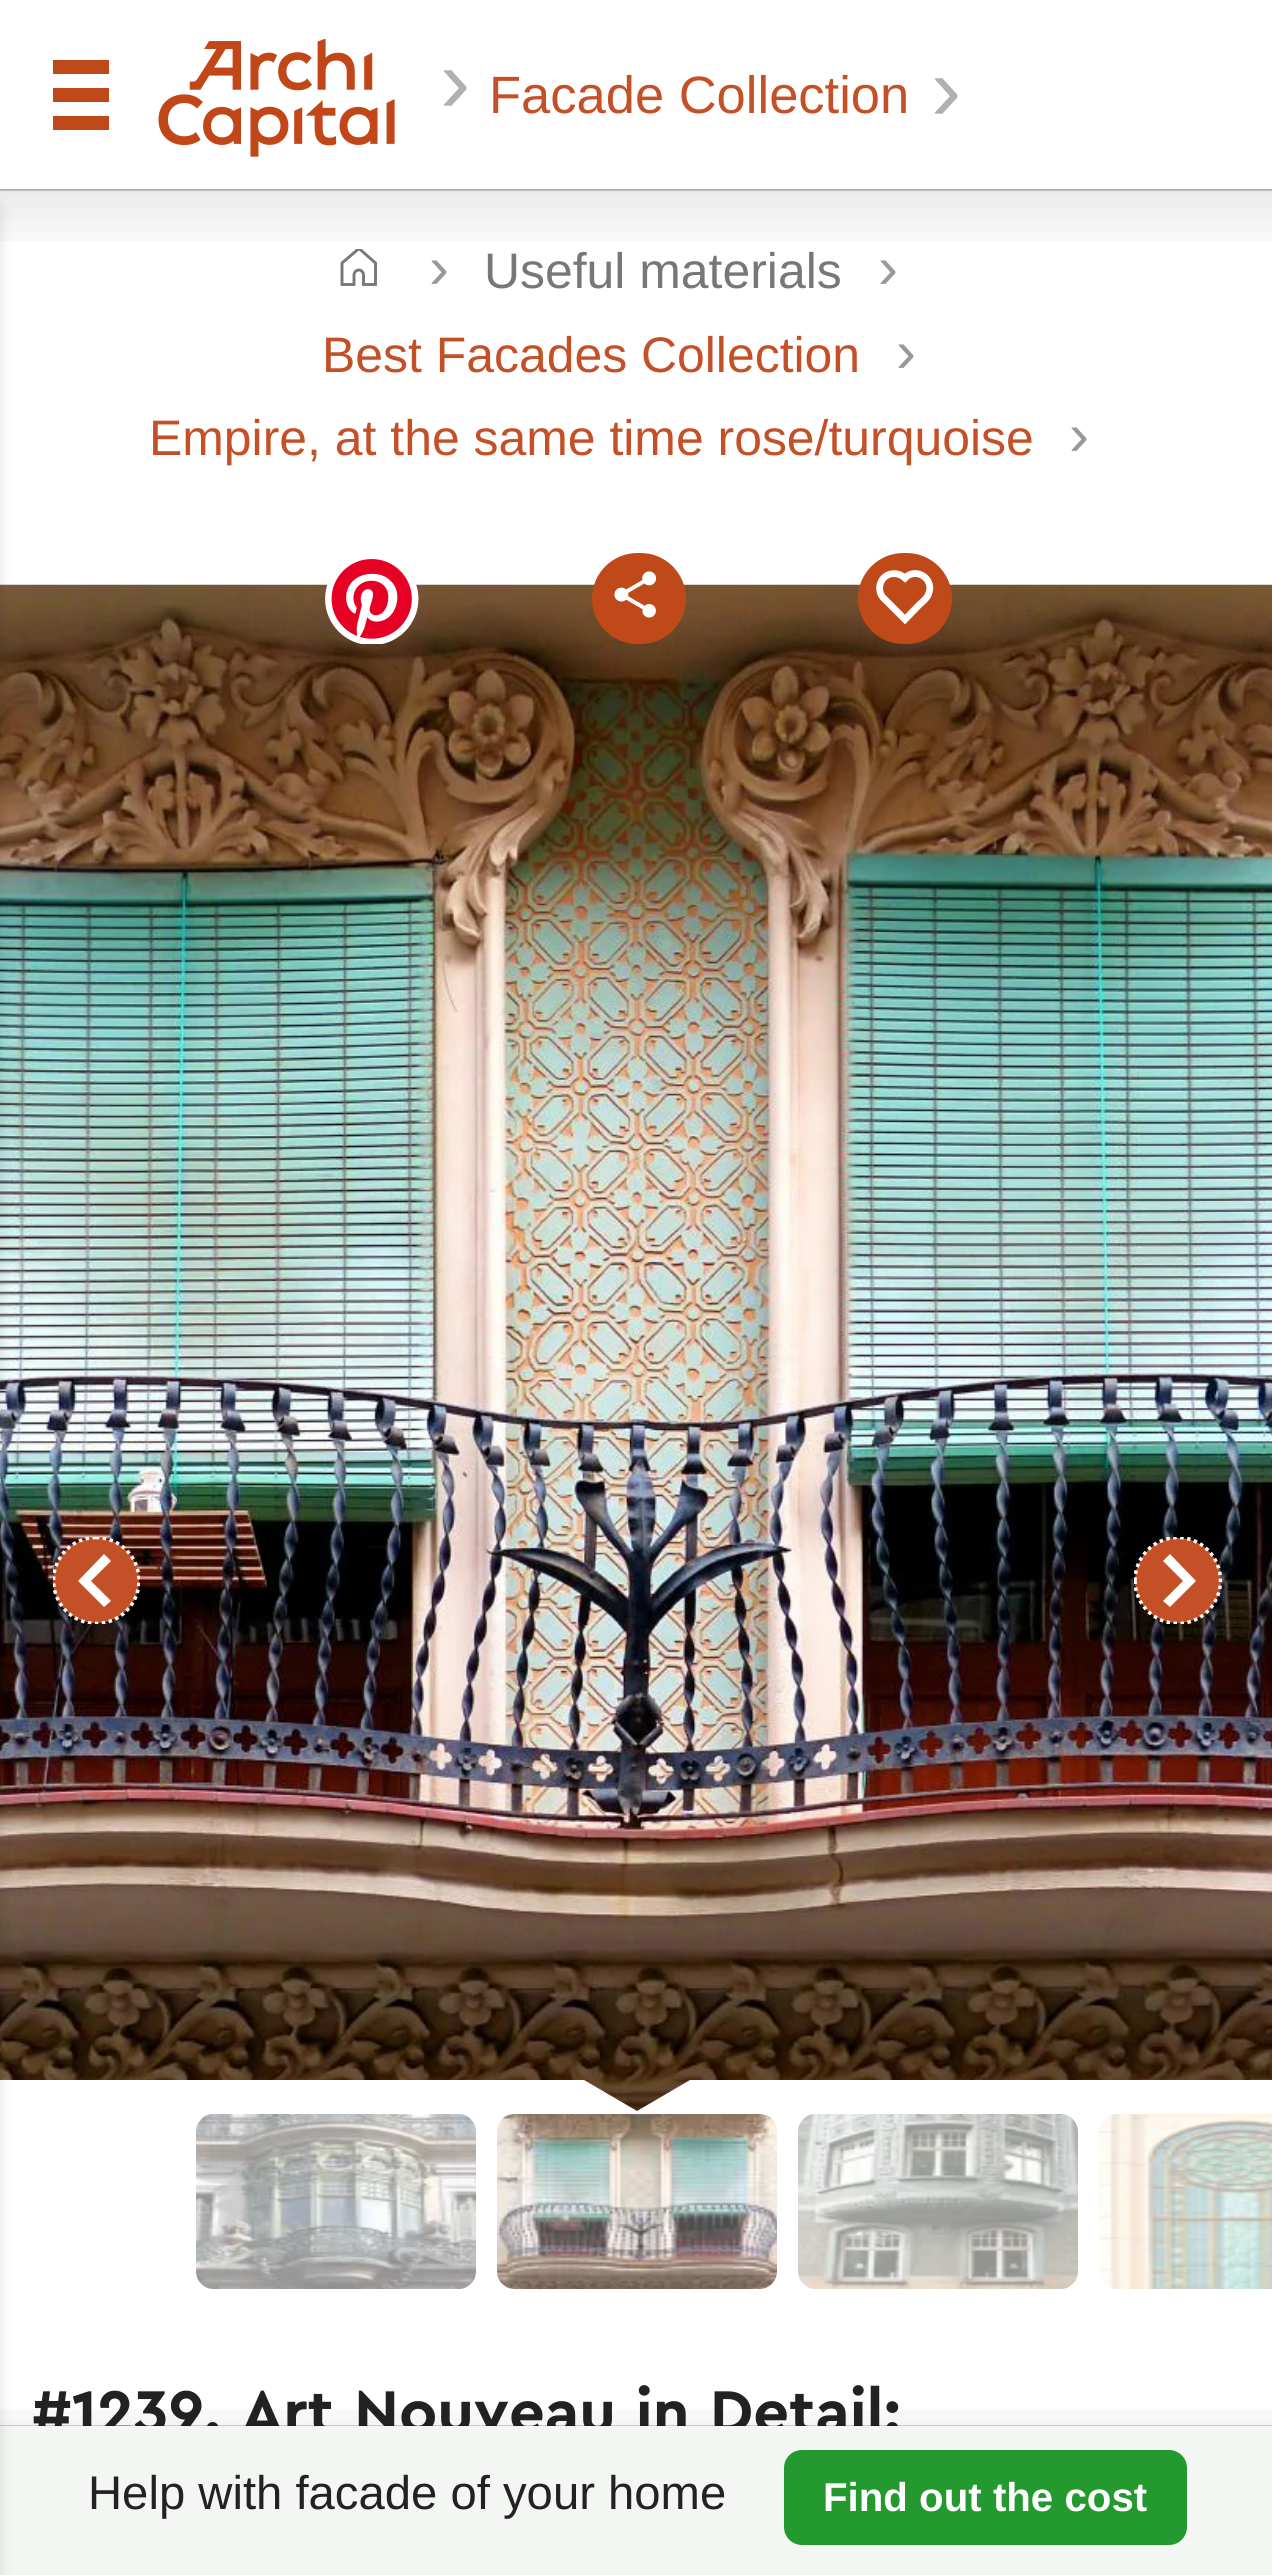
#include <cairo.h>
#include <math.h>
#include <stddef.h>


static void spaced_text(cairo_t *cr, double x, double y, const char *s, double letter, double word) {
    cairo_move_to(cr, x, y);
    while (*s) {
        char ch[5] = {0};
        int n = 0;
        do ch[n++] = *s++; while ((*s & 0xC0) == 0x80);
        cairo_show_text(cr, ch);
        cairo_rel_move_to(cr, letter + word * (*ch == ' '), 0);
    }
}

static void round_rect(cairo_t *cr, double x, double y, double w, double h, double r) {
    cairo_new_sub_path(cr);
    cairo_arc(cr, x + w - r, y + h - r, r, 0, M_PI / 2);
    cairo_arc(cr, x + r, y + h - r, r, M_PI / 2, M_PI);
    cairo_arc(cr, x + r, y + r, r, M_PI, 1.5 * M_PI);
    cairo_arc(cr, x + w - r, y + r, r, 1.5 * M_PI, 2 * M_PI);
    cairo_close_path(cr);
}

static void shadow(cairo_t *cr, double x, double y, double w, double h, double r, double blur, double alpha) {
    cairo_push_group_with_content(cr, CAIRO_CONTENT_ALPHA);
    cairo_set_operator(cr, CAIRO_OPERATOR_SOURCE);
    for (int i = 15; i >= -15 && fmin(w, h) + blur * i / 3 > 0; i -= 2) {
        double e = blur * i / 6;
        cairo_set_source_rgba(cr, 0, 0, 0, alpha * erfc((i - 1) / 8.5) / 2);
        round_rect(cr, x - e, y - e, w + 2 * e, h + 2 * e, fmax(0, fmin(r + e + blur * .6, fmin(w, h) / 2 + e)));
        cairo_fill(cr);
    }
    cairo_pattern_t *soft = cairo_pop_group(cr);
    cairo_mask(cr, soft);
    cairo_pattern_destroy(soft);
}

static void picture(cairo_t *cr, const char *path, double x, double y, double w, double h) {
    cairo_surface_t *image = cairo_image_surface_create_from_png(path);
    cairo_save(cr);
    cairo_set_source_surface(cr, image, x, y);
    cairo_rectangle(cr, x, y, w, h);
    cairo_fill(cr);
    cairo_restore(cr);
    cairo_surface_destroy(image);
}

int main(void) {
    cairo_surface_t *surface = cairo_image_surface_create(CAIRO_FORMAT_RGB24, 1272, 2575);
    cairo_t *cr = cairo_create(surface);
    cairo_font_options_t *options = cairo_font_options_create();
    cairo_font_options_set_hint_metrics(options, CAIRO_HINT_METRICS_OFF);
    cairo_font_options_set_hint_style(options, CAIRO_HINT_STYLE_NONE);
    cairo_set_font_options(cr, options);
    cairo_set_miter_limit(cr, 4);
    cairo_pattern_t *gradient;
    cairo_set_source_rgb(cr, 1, 1, 1);
    cairo_paint(cr);
    cairo_set_source_rgb(cr, 0.749, 0.286, 0.098);
    cairo_rectangle(cr, 53, 60, 56, 14);
    cairo_fill(cr);
    cairo_rectangle(cr, 53, 88, 56, 14);
    cairo_fill(cr);
    cairo_rectangle(cr, 53, 116, 56, 14);
    cairo_fill(cr);
    picture(cr, "img1.png", 158, 39, 237, 118);
    cairo_select_font_face(cr, "Liberation Sans", CAIRO_FONT_SLANT_NORMAL, CAIRO_FONT_WEIGHT_NORMAL);
    cairo_set_font_size(cr, 91);
    cairo_set_source_rgb(cr, 0.69, 0.69, 0.69);
    cairo_move_to(cr, 440, 112);
    cairo_show_text(cr, "›");
    cairo_set_font_size(cr, 52.5);
    cairo_set_source_rgb(cr, 0.765, 0.314, 0.153);
    cairo_move_to(cr, 489, 113);
    cairo_show_text(cr, "Facade Collection");
    cairo_set_font_size(cr, 91);
    cairo_set_source_rgb(cr, 0.69, 0.69, 0.69);
    cairo_move_to(cr, 931, 120);
    cairo_show_text(cr, "›");
    gradient = cairo_pattern_create_linear(637, 189, 637, 259);
    cairo_pattern_add_color_stop_rgba(gradient, 0, 0, 0, 0, 0.4);
    cairo_pattern_add_color_stop_rgba(gradient, 0.04, 0, 0, 0, 0.08);
    cairo_pattern_add_color_stop_rgba(gradient, 1, 0, 0, 0, 0);
    cairo_set_source(cr, gradient);
    cairo_pattern_destroy(gradient);
    cairo_rectangle(cr, 0, 189, 1272, 52);
    cairo_fill(cr);
    picture(cr, "img4.png", 0, 584, 1272, 1527);
    cairo_set_source_rgb(cr, 1, 1, 1);
    cairo_new_path(cr);
    cairo_move_to(cr, 0, 2080);
    cairo_line_to(cr, 0, 2114);
    cairo_line_to(cr, 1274, 2114);
    cairo_line_to(cr, 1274, 2080);
    cairo_line_to(cr, 690, 2080);
    cairo_line_to(cr, 637, 2111);
    cairo_line_to(cr, 584, 2080);
    cairo_close_path(cr);
    cairo_fill(cr);
    cairo_select_font_face(cr, "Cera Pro", CAIRO_FONT_SLANT_NORMAL, CAIRO_FONT_WEIGHT_BOLD);
    cairo_set_font_size(cr, 59.5);
    cairo_set_source_rgb(cr, 0.133, 0.133, 0.133);
    spaced_text(cr, 32, 2433, "#1239. Art Nouveau in Detail:", 0, 2.5);
    cairo_set_source_rgb(cr, 0.953, 0.961, 0.949);
    cairo_rectangle(cr, 0, 2426, 1272, 149);
    cairo_fill(cr);
    gradient = cairo_pattern_create_linear(637, 2426, 637, 2391);
    cairo_pattern_add_color_stop_rgba(gradient, 0, 0, 0, 0, 0.3);
    cairo_pattern_add_color_stop_rgba(gradient, 0.04, 0, 0, 0, 0.04);
    cairo_pattern_add_color_stop_rgba(gradient, 1, 0, 0, 0, 0);
    cairo_set_source(cr, gradient);
    cairo_pattern_destroy(gradient);
    cairo_rectangle(cr, 0, 2409, 1272, 17);
    cairo_fill(cr);
    cairo_set_source_rgb(cr, 0, 0, 0);
    shadow(cr, -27, 210, 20, 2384, 0, 9, 0.3);
    cairo_save(cr);
    cairo_rectangle(cr, 340, 249, 38, 38);
    cairo_clip(cr);
    cairo_new_path(cr);
    cairo_move_to(cr, 342, 263);
    cairo_line_to(cr, 342, 284.5);
    cairo_line_to(cr, 354, 284.5);
    cairo_line_to(cr, 354, 275);
    cairo_curve_to(cr, 354, 272.5, 356, 270, 359, 270);
    cairo_curve_to(cr, 361.5, 270, 363.5, 272.5, 363.5, 275);
    cairo_line_to(cr, 363.5, 284.5);
    cairo_line_to(cr, 375.5, 284.5);
    cairo_line_to(cr, 375.5, 263);
    cairo_line_to(cr, 359, 248.5);
    cairo_close_path(cr);
    cairo_set_source_rgb(cr, 0.467, 0.467, 0.467);
    cairo_set_line_width(cr, 2.9);
    cairo_stroke(cr);
    cairo_restore(cr);
    cairo_select_font_face(cr, "Liberation Sans", CAIRO_FONT_SLANT_NORMAL, CAIRO_FONT_WEIGHT_NORMAL);
    cairo_set_font_size(cr, 60);
    cairo_set_source_rgb(cr, 0.6, 0.6, 0.6);
    cairo_move_to(cr, 429, 288);
    cairo_show_text(cr, "›");
    cairo_set_font_size(cr, 49.9);
    cairo_set_source_rgb(cr, 0.467, 0.467, 0.467);
    cairo_move_to(cr, 484, 288);
    cairo_show_text(cr, "Useful materials");
    cairo_set_font_size(cr, 60);
    cairo_set_source_rgb(cr, 0.6, 0.6, 0.6);
    cairo_move_to(cr, 878, 288);
    cairo_show_text(cr, "›");
    cairo_set_font_size(cr, 49.9);
    cairo_set_source_rgb(cr, 0.765, 0.314, 0.153);
    cairo_move_to(cr, 322, 372);
    cairo_show_text(cr, "Best Facades Collection");
    cairo_set_font_size(cr, 60);
    cairo_set_source_rgb(cr, 0.6, 0.6, 0.6);
    cairo_move_to(cr, 896, 372);
    cairo_show_text(cr, "›");
    cairo_set_font_size(cr, 49.9);
    cairo_set_source_rgb(cr, 0.765, 0.314, 0.153);
    cairo_move_to(cr, 149, 455);
    cairo_show_text(cr, "Empire, at the same time rose/turquoise");
    cairo_set_font_size(cr, 60);
    cairo_set_source_rgb(cr, 0.6, 0.6, 0.6);
    cairo_move_to(cr, 1069, 455);
    cairo_show_text(cr, "›");
    picture(cr, "img2.png", 325, 559, 94, 85);
    cairo_set_source_rgb(cr, 0.749, 0.286, 0.098);
    round_rect(cr, 592, 553, 94, 91, 45.5);
    cairo_fill(cr);
    picture(cr, "img3.png", 614, 571, 43, 47);
    round_rect(cr, 858, 553, 94, 91, 45.5);
    cairo_fill(cr);
    cairo_new_path(cr);
    cairo_move_to(cr, 884, 577.5);
    cairo_curve_to(cr, 879, 582.5, 878, 591, 882.5, 597);
    cairo_line_to(cr, 905, 619.5);
    cairo_line_to(cr, 918.5, 605.5);
    cairo_curve_to(cr, 922, 602, 927, 598.5, 928.5, 594);
    cairo_curve_to(cr, 935, 579, 916, 566.5, 905, 578);
    cairo_curve_to(cr, 899, 572.5, 890, 572, 884, 577.5);
    cairo_close_path(cr);
    cairo_set_source_rgb(cr, 1, 1, 1);
    cairo_set_line_width(cr, 6.8);
    cairo_stroke(cr);
    cairo_set_source_rgb(cr, 0.765, 0.314, 0.153);
    cairo_new_path(cr);
    cairo_move_to(cr, 96, 1538);
    cairo_curve_to(cr, 73, 1538, 53, 1557, 53, 1581);
    cairo_curve_to(cr, 53, 1604, 73, 1623, 96, 1623);
    cairo_curve_to(cr, 120, 1623, 139, 1604, 139, 1581);
    cairo_curve_to(cr, 139, 1557, 120, 1538, 96, 1538);
    cairo_close_path(cr);
    cairo_fill(cr);
    cairo_save(cr);
    cairo_rectangle(cr, 53, 1537, 87, 87);
    cairo_clip(cr);
    cairo_new_path(cr);
    cairo_move_to(cr, 96, 1537.5);
    cairo_curve_to(cr, 72.5, 1537.5, 53.5, 1557, 53.5, 1580.5);
    cairo_curve_to(cr, 53.5, 1604, 72.5, 1623.5, 96, 1623.5);
    cairo_curve_to(cr, 120, 1623.5, 139, 1604, 139, 1580.5);
    cairo_curve_to(cr, 139, 1557, 120, 1537.5, 96, 1537.5);
    cairo_close_path(cr);
    cairo_set_source_rgb(cr, 1, 1, 1);
    cairo_set_line_width(cr, 3.5);
    cairo_set_dash(cr, (double[]){3.5, 3.5}, 2, 0);
    cairo_stroke(cr);
    cairo_restore(cr);
    cairo_set_source_rgb(cr, 1, 1, 1);
    cairo_new_path(cr);
    cairo_move_to(cr, 111, 1601);
    cairo_line_to(cr, 104, 1607);
    cairo_line_to(cr, 78, 1581);
    cairo_line_to(cr, 104, 1554);
    cairo_line_to(cr, 111, 1561);
    cairo_line_to(cr, 91, 1581);
    cairo_close_path(cr);
    cairo_fill(cr);
    cairo_set_source_rgb(cr, 0.765, 0.314, 0.153);
    cairo_new_path(cr);
    cairo_move_to(cr, 1135, 1581);
    cairo_curve_to(cr, 1135, 1604, 1154, 1623, 1178, 1623);
    cairo_curve_to(cr, 1201, 1623, 1221, 1604, 1221, 1581);
    cairo_curve_to(cr, 1221, 1557, 1201, 1538, 1178, 1538);
    cairo_curve_to(cr, 1154, 1538, 1135, 1557, 1135, 1581);
    cairo_close_path(cr);
    cairo_fill(cr);
    cairo_save(cr);
    cairo_rectangle(cr, 1134, 1537, 88, 87);
    cairo_clip(cr);
    cairo_new_path(cr);
    cairo_move_to(cr, 1135, 1580.5);
    cairo_curve_to(cr, 1135, 1604, 1154, 1623.5, 1178, 1623.5);
    cairo_curve_to(cr, 1201.5, 1623.5, 1220.5, 1604, 1220.5, 1580.5);
    cairo_curve_to(cr, 1220.5, 1557, 1201.5, 1537.5, 1178, 1537.5);
    cairo_curve_to(cr, 1154, 1537.5, 1135, 1557, 1135, 1580.5);
    cairo_close_path(cr);
    cairo_set_source_rgb(cr, 1, 1, 1);
    cairo_set_line_width(cr, 3.5);
    cairo_set_dash(cr, (double[]){3.5, 3.5}, 2, 0);
    cairo_stroke(cr);
    cairo_restore(cr);
    cairo_set_source_rgb(cr, 1, 1, 1);
    cairo_new_path(cr);
    cairo_move_to(cr, 1183, 1581);
    cairo_line_to(cr, 1163, 1561);
    cairo_line_to(cr, 1170, 1554);
    cairo_line_to(cr, 1196, 1581);
    cairo_line_to(cr, 1170, 1607);
    cairo_line_to(cr, 1163, 1601);
    cairo_close_path(cr);
    cairo_fill(cr);
    picture(cr, "img5.png", 196, 2114, 280, 175);
    picture(cr, "img6.png", 497, 2114, 280, 175);
    picture(cr, "img7.png", 798, 2114, 280, 175);
    picture(cr, "img8.png", 1099, 2114, 173, 175);
    cairo_set_font_size(cr, 47.25);
    cairo_set_source_rgb(cr, 0.133, 0.133, 0.133);
    cairo_move_to(cr, 88, 2509);
    cairo_show_text(cr, "Help with facade of your home");
    cairo_set_source_rgb(cr, 0.141, 0.6, 0.184);
    round_rect(cr, 784, 2450, 403, 95, 18);
    cairo_fill(cr);
    cairo_select_font_face(cr, "Liberation Sans", CAIRO_FONT_SLANT_NORMAL, CAIRO_FONT_WEIGHT_BOLD);
    cairo_set_font_size(cr, 40.25);
    cairo_set_source_rgb(cr, 1, 1, 1);
    cairo_move_to(cr, 823, 2511);
    cairo_show_text(cr, "Find out the cost");
    cairo_surface_write_to_png(surface, "page.png");
    cairo_font_options_destroy(options);
    cairo_destroy(cr);
    cairo_surface_destroy(surface);
    return 0;
}
